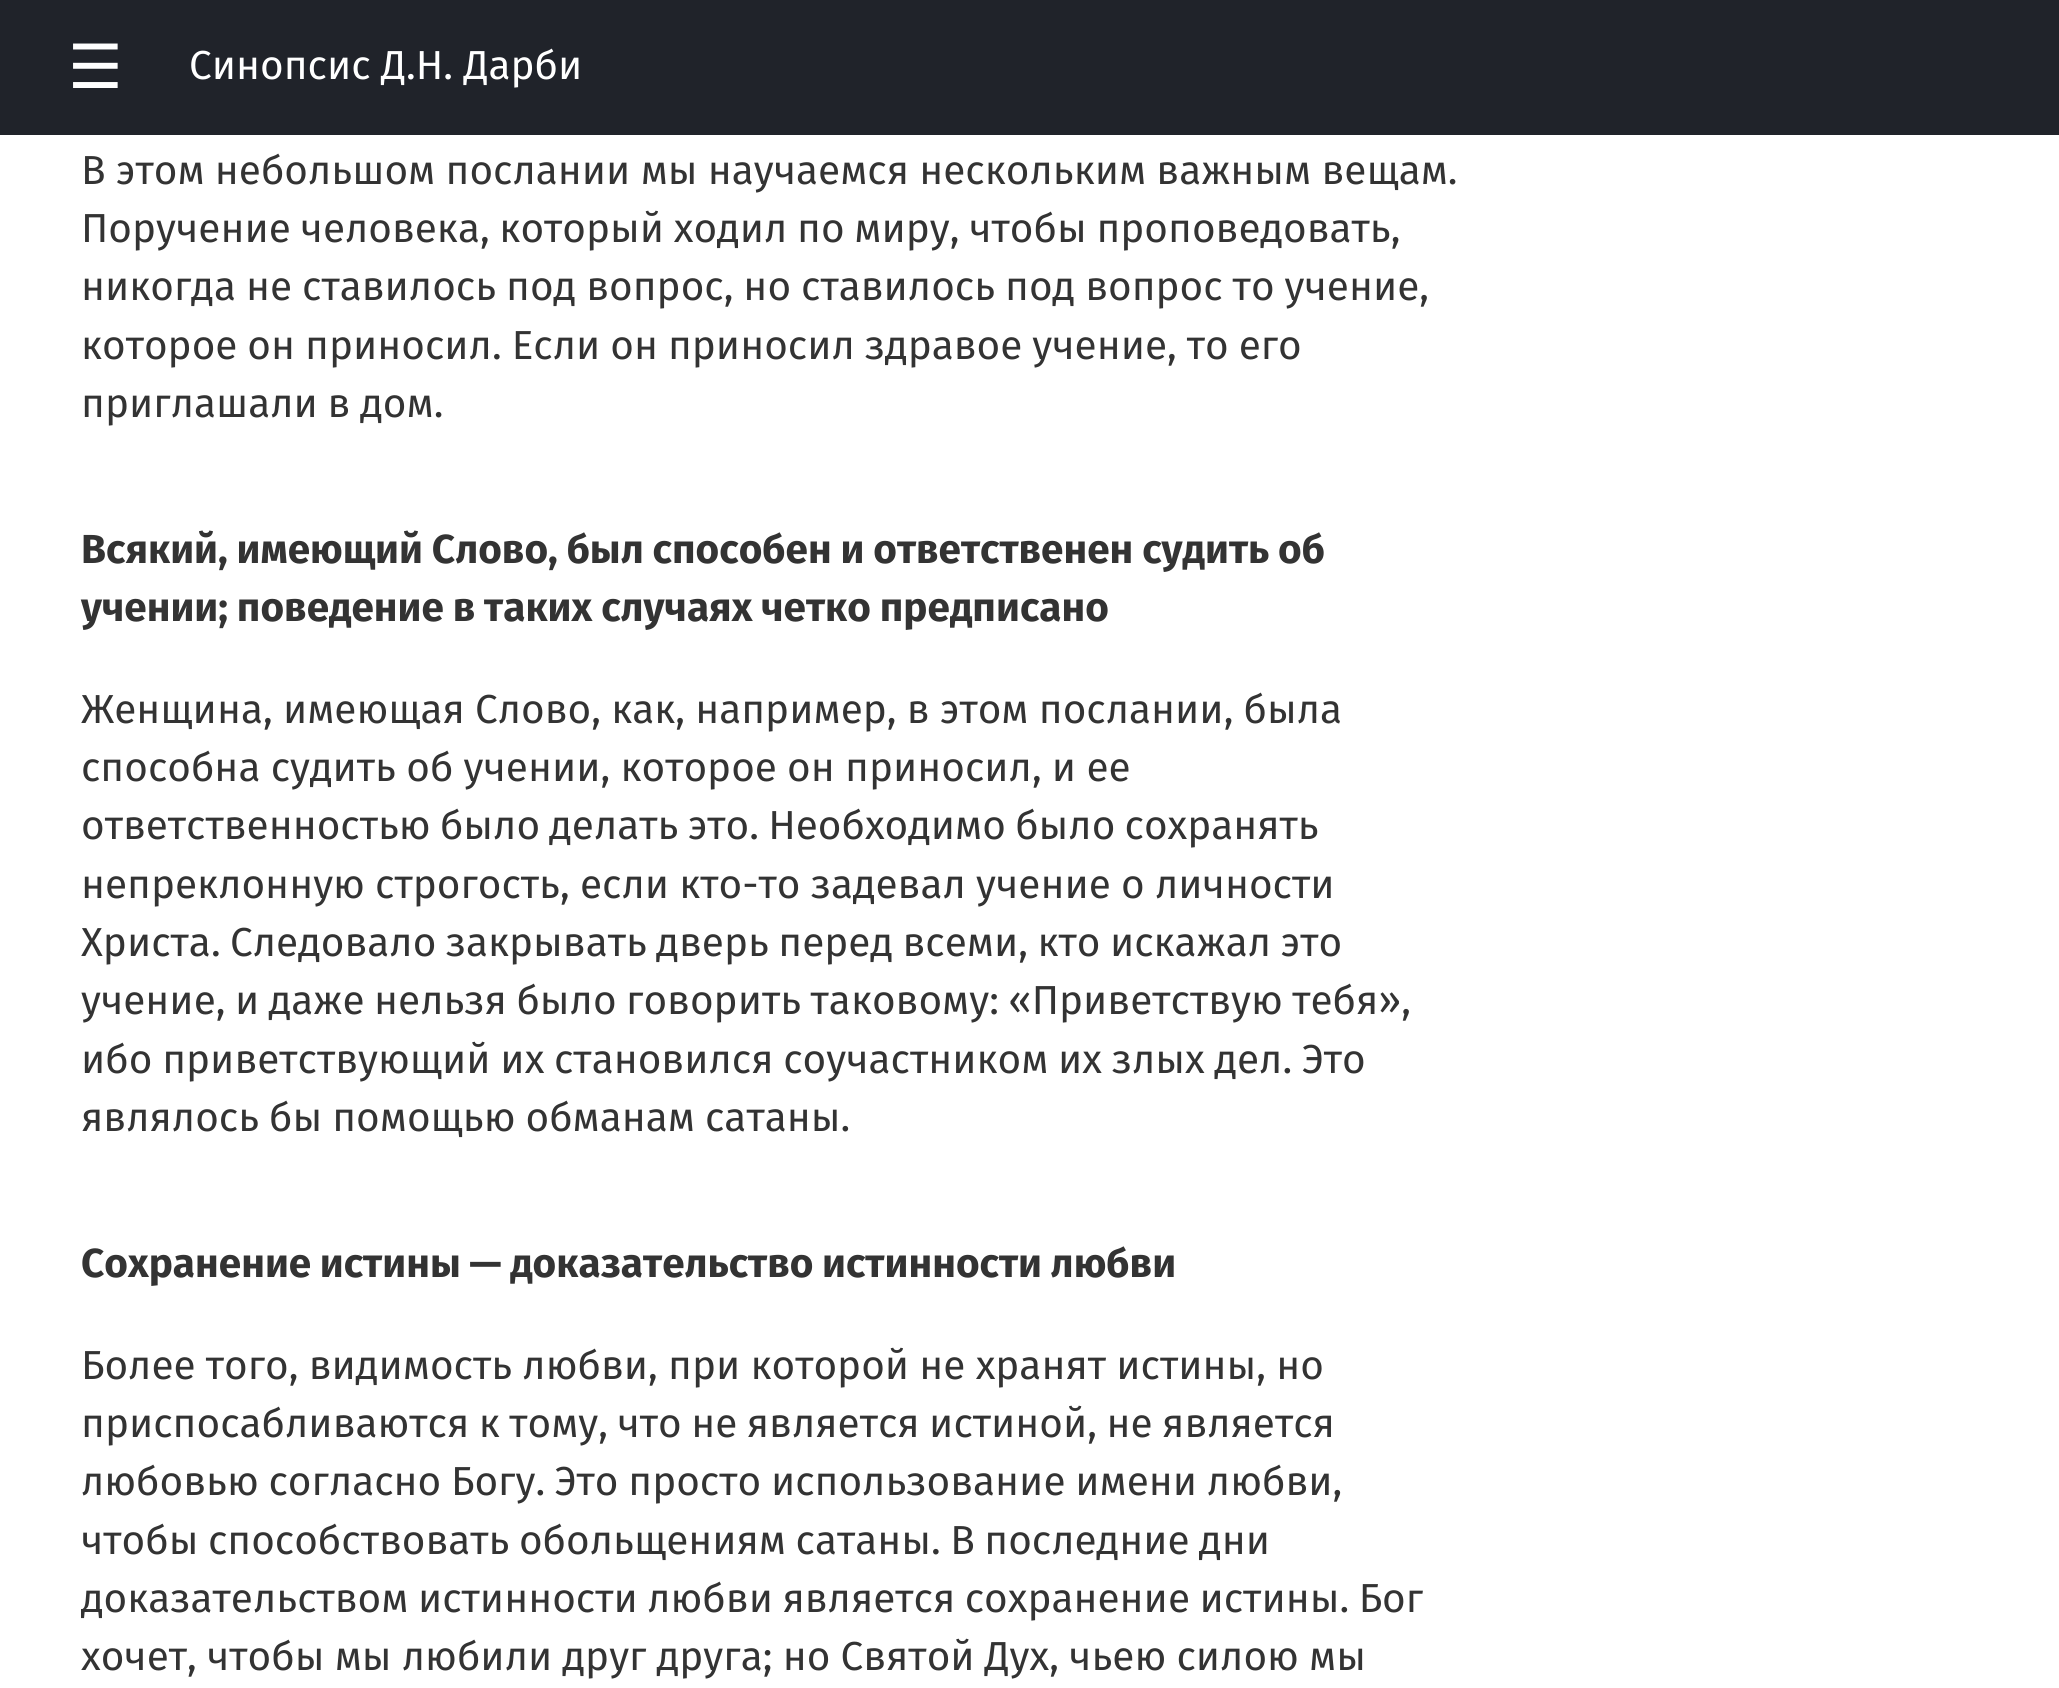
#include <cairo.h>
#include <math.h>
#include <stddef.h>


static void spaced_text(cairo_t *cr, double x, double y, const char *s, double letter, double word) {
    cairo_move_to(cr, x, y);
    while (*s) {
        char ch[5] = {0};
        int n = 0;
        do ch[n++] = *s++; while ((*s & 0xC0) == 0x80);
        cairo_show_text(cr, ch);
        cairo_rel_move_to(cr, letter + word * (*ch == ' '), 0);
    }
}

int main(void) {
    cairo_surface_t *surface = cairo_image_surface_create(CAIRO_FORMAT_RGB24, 2059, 1688);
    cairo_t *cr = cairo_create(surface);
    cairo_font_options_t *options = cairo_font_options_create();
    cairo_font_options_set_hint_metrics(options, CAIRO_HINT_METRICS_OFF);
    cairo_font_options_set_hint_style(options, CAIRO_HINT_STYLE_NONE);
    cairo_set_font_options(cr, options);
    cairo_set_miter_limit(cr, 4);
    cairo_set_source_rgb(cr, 1, 1, 1);
    cairo_paint(cr);
    cairo_set_source_rgb(cr, 0.125, 0.137, 0.165);
    cairo_rectangle(cr, 0, 0, 2059, 135);
    cairo_fill(cr);
    cairo_select_font_face(cr, "DejaVu Sans", CAIRO_FONT_SLANT_NORMAL, CAIRO_FONT_WEIGHT_NORMAL);
    cairo_set_font_size(cr, 61);
    cairo_set_source_rgb(cr, 1, 1, 1);
    cairo_move_to(cr, 68, 88);
    cairo_show_text(cr, "☰");
    cairo_select_font_face(cr, "Fira Sans", CAIRO_FONT_SLANT_NORMAL, CAIRO_FONT_WEIGHT_NORMAL);
    cairo_set_font_size(cr, 40.5);
    cairo_move_to(cr, 189, 79);
    cairo_show_text(cr, "Синопсис Д.Н. Дарби");
    cairo_set_source_rgb(cr, 0.2, 0.2, 0.2);
    spaced_text(cr, 81, 184, "В этом небольшом послании мы научаемся нескольким важным вещам.", 0, -0.5);
    spaced_text(cr, 81, 242, "Поручение человека, который ходил по миру, чтобы проповедовать,", 0, -1);
    spaced_text(cr, 81, 300, "никогда не ставилось под вопрос, но ставилось под вопрос то учение,", 0, -0.75);
    spaced_text(cr, 81, 359, "которое он приносил. Если он приносил здравое учение, то его", 0, -0.75);
    spaced_text(cr, 81, 417, "приглашали в дом.", 0, -1);
    cairo_select_font_face(cr, "Fira Sans", CAIRO_FONT_SLANT_NORMAL, CAIRO_FONT_WEIGHT_BOLD);
    spaced_text(cr, 81, 563, "Всякий, имеющий Слово, был способен и ответственен судить об", 0, -0.75);
    spaced_text(cr, 81, 621, "учении; поведение в таких случаях четко предписано", 0, -0.75);
    cairo_select_font_face(cr, "Fira Sans", CAIRO_FONT_SLANT_NORMAL, CAIRO_FONT_WEIGHT_NORMAL);
    spaced_text(cr, 81, 723, "Женщина, имеющая Слово, как, например, в этом послании, была", 0, -0.5);
    spaced_text(cr, 81, 781, "способна судить об учении, которое он приносил, и ее", 0, -0.5);
    spaced_text(cr, 81, 839, "ответственностью было делать это. Необходимо было сохранять", 0, -1.5);
    spaced_text(cr, 81, 898, "непреклонную строгость, если кто-то задевал учение о личности", 0, -0.5);
    spaced_text(cr, 81, 956, "Христа. Следовало закрывать дверь перед всеми, кто искажал это", 0, -1.25);
    spaced_text(cr, 81, 1014, "учение, и даже нельзя было говорить таковому: «Приветствую тебя»,", 0, -1.25);
    spaced_text(cr, 81, 1073, "ибо приветствующий их становился соучастником их злых дел. Это", 0, -1);
    spaced_text(cr, 81, 1131, "являлось бы помощью обманам сатаны.", 0, -0.75);
    cairo_select_font_face(cr, "Fira Sans", CAIRO_FONT_SLANT_NORMAL, CAIRO_FONT_WEIGHT_BOLD);
    spaced_text(cr, 81, 1277, "Сохранение истины — доказательство истинности любви", 0, -1);
    cairo_select_font_face(cr, "Fira Sans", CAIRO_FONT_SLANT_NORMAL, CAIRO_FONT_WEIGHT_NORMAL);
    spaced_text(cr, 81, 1379, "Более того, видимость любви, при которой не хранят истины, но", 0, -0.5);
    spaced_text(cr, 81, 1437, "приспосабливаются к тому, что не является истиной, не является", 0, -1.25);
    spaced_text(cr, 81, 1495, "любовью согласно Богу. Это просто использование имени любви,", 0, -1);
    spaced_text(cr, 81, 1554, "чтобы способствовать обольщениям сатаны. В последние дни", 0, -1.25);
    spaced_text(cr, 81, 1612, "доказательством истинности любви является сохранение истины. Бог", 0, -1.25);
    spaced_text(cr, 81, 1670, "хочет, чтобы мы любили друг друга; но Святой Дух, чьею силою мы", 0, -0.5);
    cairo_surface_write_to_png(surface, "page.png");
    cairo_font_options_destroy(options);
    cairo_destroy(cr);
    cairo_surface_destroy(surface);
    return 0;
}
